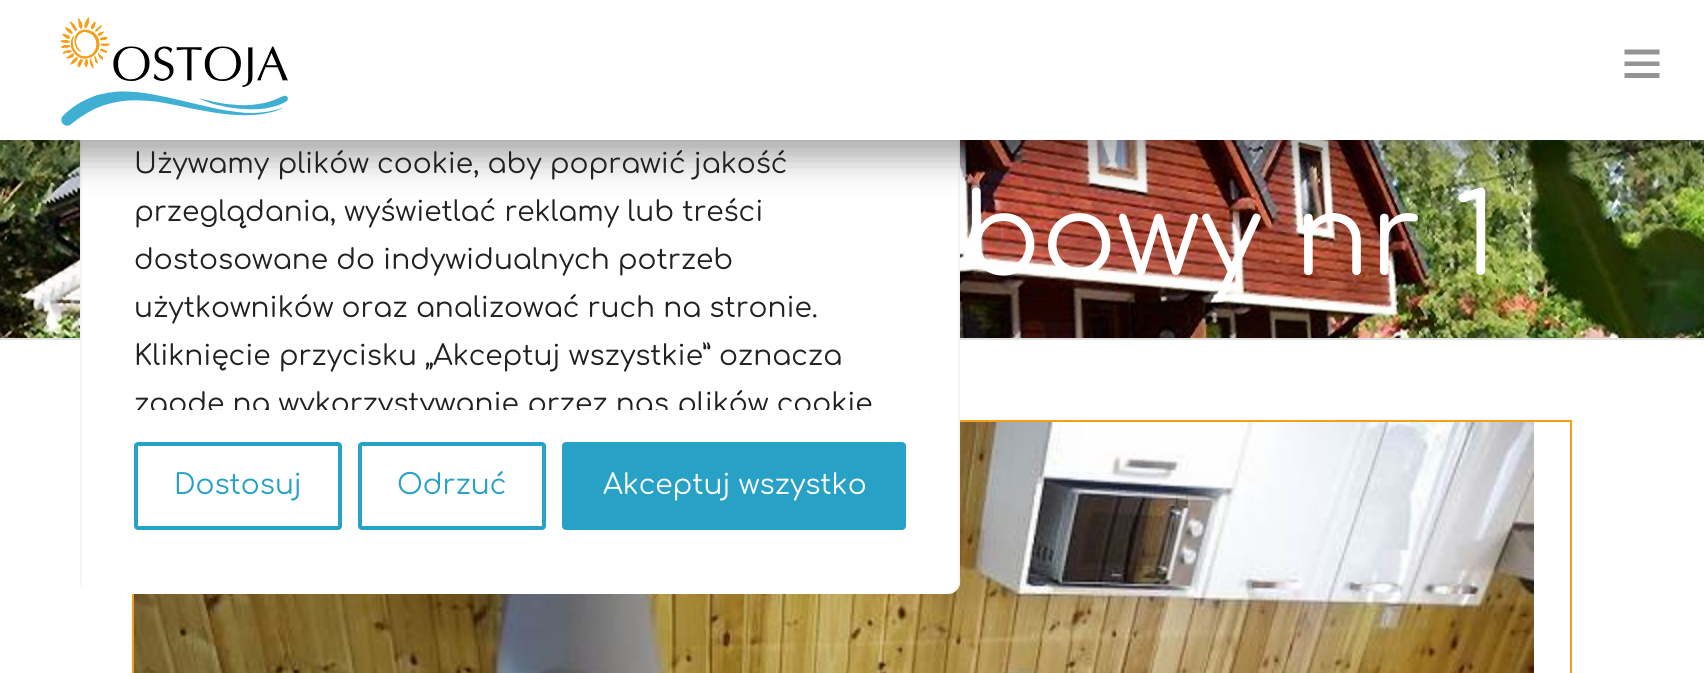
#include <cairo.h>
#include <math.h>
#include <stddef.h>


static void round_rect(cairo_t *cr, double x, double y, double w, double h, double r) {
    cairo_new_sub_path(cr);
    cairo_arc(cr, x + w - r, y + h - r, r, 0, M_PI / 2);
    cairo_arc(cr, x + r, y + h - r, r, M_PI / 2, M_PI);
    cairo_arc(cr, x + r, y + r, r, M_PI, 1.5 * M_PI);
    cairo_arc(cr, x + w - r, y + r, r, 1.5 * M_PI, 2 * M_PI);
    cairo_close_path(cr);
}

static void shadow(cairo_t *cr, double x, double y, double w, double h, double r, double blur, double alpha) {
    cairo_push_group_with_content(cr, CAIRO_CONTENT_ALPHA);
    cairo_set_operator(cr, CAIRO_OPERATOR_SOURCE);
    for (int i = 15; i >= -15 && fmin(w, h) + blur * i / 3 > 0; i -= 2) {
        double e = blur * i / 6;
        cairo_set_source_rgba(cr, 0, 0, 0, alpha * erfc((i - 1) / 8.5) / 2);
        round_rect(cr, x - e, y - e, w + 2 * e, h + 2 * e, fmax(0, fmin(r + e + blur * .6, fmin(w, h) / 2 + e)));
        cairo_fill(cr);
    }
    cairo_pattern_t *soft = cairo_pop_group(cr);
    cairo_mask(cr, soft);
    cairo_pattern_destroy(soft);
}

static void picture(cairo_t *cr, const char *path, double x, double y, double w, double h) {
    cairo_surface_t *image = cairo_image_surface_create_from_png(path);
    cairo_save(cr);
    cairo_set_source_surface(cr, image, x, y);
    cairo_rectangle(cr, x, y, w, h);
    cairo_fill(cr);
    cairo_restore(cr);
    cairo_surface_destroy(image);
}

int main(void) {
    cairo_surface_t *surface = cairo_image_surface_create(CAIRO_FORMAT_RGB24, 1704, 673);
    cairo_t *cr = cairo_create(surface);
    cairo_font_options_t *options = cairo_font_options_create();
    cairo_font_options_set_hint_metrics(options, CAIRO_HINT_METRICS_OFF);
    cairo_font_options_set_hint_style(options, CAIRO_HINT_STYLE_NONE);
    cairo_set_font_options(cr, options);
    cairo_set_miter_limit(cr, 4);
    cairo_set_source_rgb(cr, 1, 1, 1);
    cairo_paint(cr);
    cairo_set_source_rgb(cr, 0.886, 0.886, 0.886);
    cairo_rectangle(cr, 0, 338, 1704, 2);
    cairo_fill(cr);
    picture(cr, "img2.png", 0, 140, 1704, 198);
    cairo_rectangle(cr, 133, 421, 1438, 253);
    cairo_set_source_rgb(cr, 0.957, 0.624, 0.09);
    cairo_stroke(cr);
    picture(cr, "img3.png", 134, 422, 1400, 251);
    cairo_set_source_rgb(cr, 1, 1, 1);
    round_rect(cr, 80, -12, 880, 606, 12);
    cairo_fill(cr);
    cairo_set_source_rgb(cr, 0.957, 0.957, 0.957);
    cairo_new_path(cr);
    cairo_move_to(cr, 92, -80);
    cairo_curve_to(cr, 85, -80, 80, -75, 80, -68);
    cairo_line_to(cr, 80, 582);
    cairo_curve_to(cr, 80, 584, 81, 587, 82, 589);
    cairo_line_to(cr, 82, -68);
    cairo_curve_to(cr, 82, -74, 86, -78, 92, -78);
    cairo_line_to(cr, 948, -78);
    cairo_curve_to(cr, 954, -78, 958, -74, 958, -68);
    cairo_line_to(cr, 958, 589);
    cairo_curve_to(cr, 959, 587, 960, 584, 960, 582);
    cairo_line_to(cr, 960, -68);
    cairo_curve_to(cr, 960, -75, 955, -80, 948, -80);
    cairo_close_path(cr);
    cairo_fill(cr);
    cairo_set_source_rgb(cr, 0, 0, 0);
    shadow(cr, 0, 12, 1704, 140, 0, 20, 0.19);
    shadow(cr, 0, 20, 1704, 140, 0, 16, 0.2);
    cairo_set_source_rgb(cr, 1, 1, 1);
    cairo_rectangle(cr, 0, 0, 1704, 140);
    cairo_fill(cr);
    picture(cr, "img1.png", 60, 17, 228, 109);
    cairo_set_source_rgb(cr, 0.58, 0.58, 0.58);
    cairo_new_path(cr);
    cairo_move_to(cr, 1659.5, 49.5);
    cairo_line_to(cr, 1659.5, 54.5);
    cairo_line_to(cr, 1624.5, 54.5);
    cairo_line_to(cr, 1624.5, 49.5);
    cairo_close_path(cr);
    cairo_move_to(cr, 1624.5, 66);
    cairo_line_to(cr, 1659.5, 66);
    cairo_line_to(cr, 1659.5, 61.5);
    cairo_line_to(cr, 1624.5, 61.5);
    cairo_close_path(cr);
    cairo_move_to(cr, 1624.5, 78);
    cairo_line_to(cr, 1659.5, 78);
    cairo_line_to(cr, 1659.5, 73);
    cairo_line_to(cr, 1624.5, 73);
    cairo_close_path(cr);
    cairo_fill(cr);
    cairo_select_font_face(cr, "Comfortaa", CAIRO_FONT_SLANT_NORMAL, CAIRO_FONT_WEIGHT_NORMAL);
    cairo_set_font_size(cr, 28);
    cairo_set_source_rgb(cr, 0.129, 0.129, 0.129);
    cairo_move_to(cr, 134, 173);
    cairo_show_text(cr, "Używamy plików cookie, aby poprawić jakość");
    cairo_move_to(cr, 134, 221);
    cairo_show_text(cr, "przeglądania, wyświetlać reklamy lub treści");
    cairo_move_to(cr, 134, 269);
    cairo_show_text(cr, "dostosowane do indywidualnych potrzeb");
    cairo_move_to(cr, 134, 317);
    cairo_show_text(cr, "użytkowników oraz analizować ruch na stronie.");
    cairo_move_to(cr, 134, 365);
    cairo_show_text(cr, "Kliknięcie przycisku „Akceptuj wszystkie” oznacza");
    cairo_save(cr);
    cairo_rectangle(cr, 134, 140, 772, 270);
    cairo_clip(cr);
    cairo_move_to(cr, 134, 413);
    cairo_show_text(cr, "zgodę na wykorzystywanie przez nas plików cookie");
    cairo_restore(cr);
    round_rect(cr, 136, 444, 204, 84, 2);
    cairo_set_source_rgb(cr, 0.157, 0.631, 0.78);
    cairo_set_line_width(cr, 4);
    cairo_stroke(cr);
    cairo_move_to(cr, 174, 494);
    cairo_show_text(cr, "Dostosuj");
    round_rect(cr, 360, 444, 184, 84, 2);
    cairo_stroke(cr);
    cairo_move_to(cr, 397, 494);
    cairo_show_text(cr, "Odrzuć");
    round_rect(cr, 564, 444, 340, 84, 2);
    cairo_fill_preserve(cr);
    cairo_stroke(cr);
    cairo_set_source_rgb(cr, 1, 1, 1);
    cairo_move_to(cr, 603, 494);
    cairo_show_text(cr, "Akceptuj wszystko");
    cairo_set_font_size(cr, 112);
    cairo_move_to(cr, 962, 275);
    cairo_show_text(cr, "bowy nr 1");
    cairo_surface_write_to_png(surface, "page.png");
    cairo_font_options_destroy(options);
    cairo_destroy(cr);
    cairo_surface_destroy(surface);
    return 0;
}
